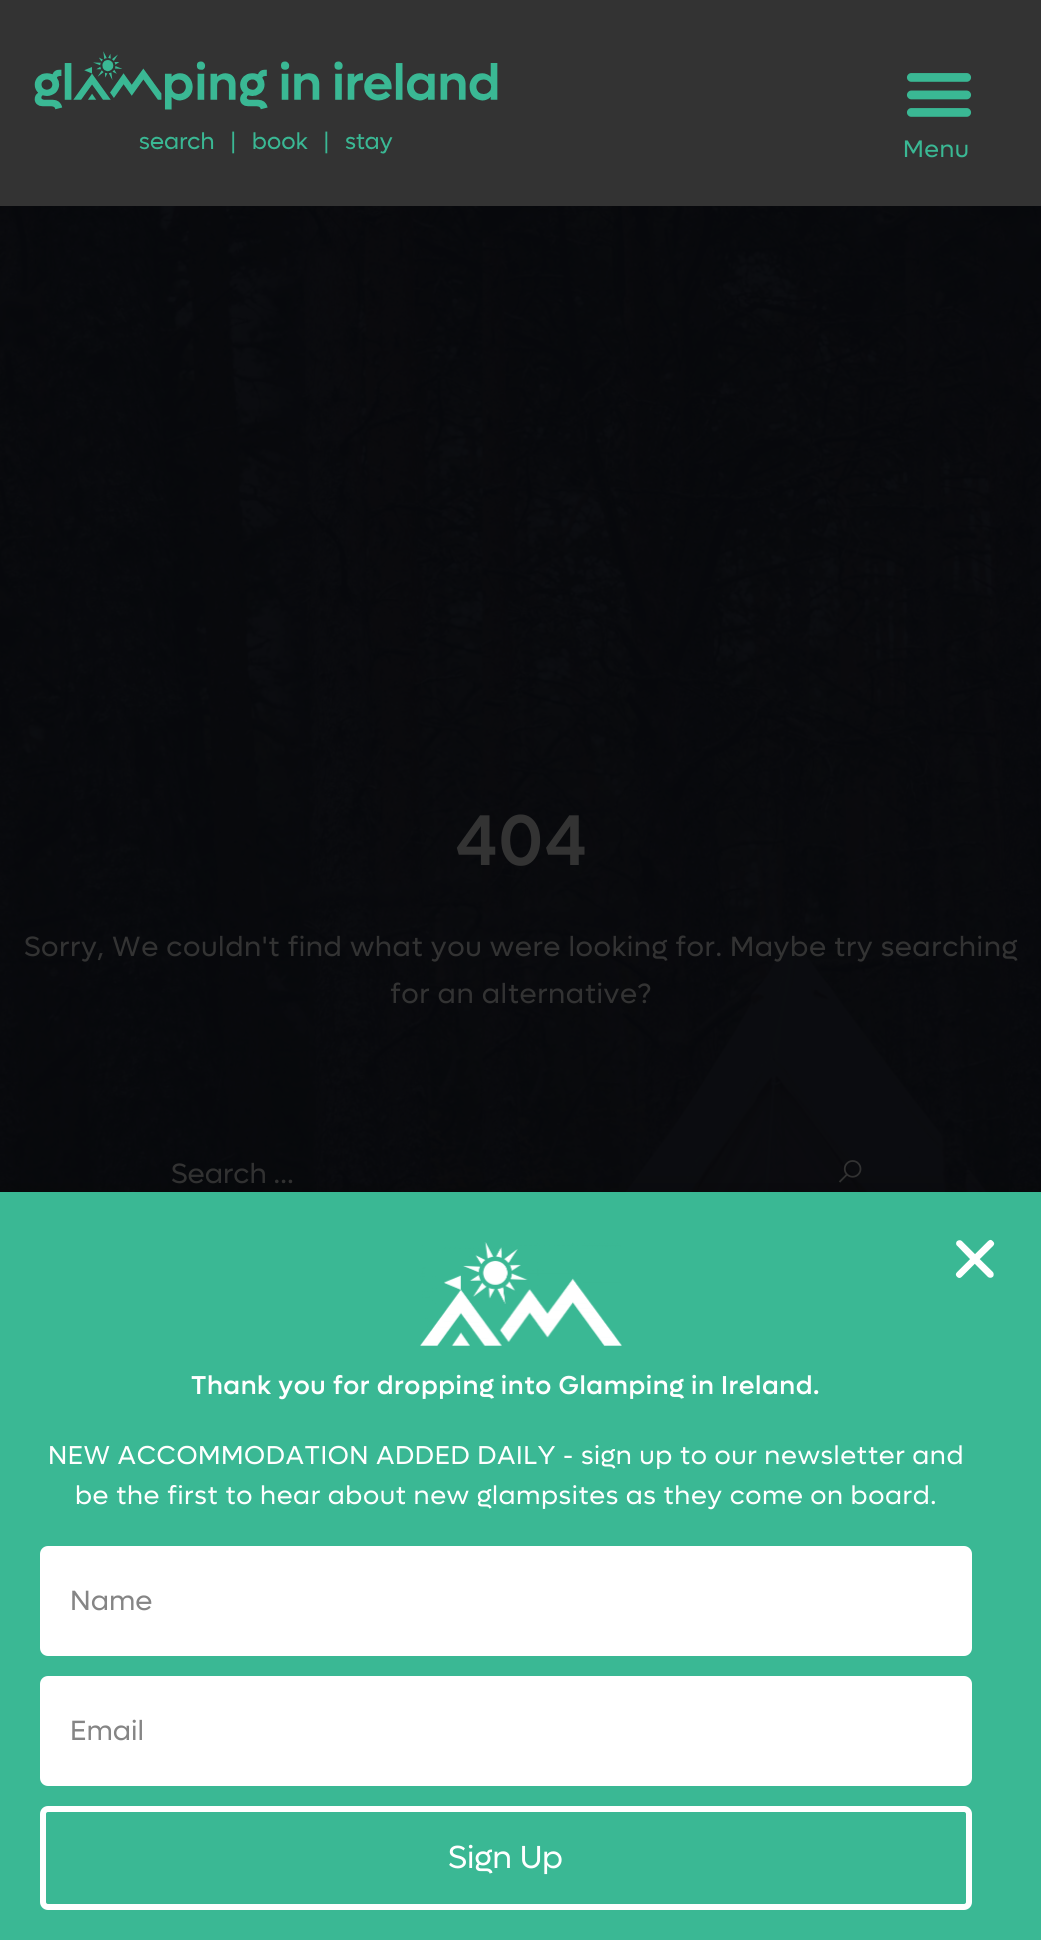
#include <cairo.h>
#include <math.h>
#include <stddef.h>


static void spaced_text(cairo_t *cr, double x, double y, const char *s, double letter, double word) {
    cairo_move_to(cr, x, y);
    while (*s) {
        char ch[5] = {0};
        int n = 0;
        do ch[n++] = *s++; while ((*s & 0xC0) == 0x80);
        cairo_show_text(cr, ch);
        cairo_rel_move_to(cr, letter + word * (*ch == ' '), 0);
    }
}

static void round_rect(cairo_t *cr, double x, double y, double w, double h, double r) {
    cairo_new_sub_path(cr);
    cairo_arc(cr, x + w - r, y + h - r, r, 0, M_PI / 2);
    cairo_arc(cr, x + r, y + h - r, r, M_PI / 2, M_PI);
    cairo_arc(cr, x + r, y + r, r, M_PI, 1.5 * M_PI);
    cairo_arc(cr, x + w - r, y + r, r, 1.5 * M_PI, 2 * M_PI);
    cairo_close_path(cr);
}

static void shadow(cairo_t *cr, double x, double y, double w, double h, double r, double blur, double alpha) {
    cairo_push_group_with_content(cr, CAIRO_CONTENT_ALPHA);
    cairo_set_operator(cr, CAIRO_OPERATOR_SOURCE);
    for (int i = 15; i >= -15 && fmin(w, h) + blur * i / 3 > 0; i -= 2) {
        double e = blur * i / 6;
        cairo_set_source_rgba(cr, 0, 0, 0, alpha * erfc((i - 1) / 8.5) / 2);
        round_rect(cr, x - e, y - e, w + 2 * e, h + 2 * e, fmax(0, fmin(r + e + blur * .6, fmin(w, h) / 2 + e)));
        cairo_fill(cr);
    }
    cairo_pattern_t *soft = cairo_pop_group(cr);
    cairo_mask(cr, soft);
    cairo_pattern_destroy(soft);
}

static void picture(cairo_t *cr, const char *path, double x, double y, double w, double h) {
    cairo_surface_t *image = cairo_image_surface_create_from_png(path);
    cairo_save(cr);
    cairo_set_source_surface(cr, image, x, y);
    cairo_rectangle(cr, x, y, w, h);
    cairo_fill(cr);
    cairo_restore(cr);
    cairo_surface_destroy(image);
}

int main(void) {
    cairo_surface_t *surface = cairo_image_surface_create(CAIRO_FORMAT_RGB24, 1041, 1940);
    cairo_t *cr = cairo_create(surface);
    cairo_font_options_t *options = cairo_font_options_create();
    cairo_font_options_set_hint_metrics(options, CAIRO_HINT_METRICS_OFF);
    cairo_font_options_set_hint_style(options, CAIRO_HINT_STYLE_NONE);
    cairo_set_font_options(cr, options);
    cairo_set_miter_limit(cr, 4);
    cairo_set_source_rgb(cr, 0.2, 0.2, 0.2);
    cairo_paint(cr);
    picture(cr, "img1.png", 34, 51, 464, 103);
    picture(cr, "img2.png", 906, 73, 66, 44);
    cairo_select_font_face(cr, "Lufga", CAIRO_FONT_SLANT_NORMAL, CAIRO_FONT_WEIGHT_NORMAL);
    cairo_set_font_size(cr, 24);
    cairo_set_source_rgb(cr, 0.227, 0.722, 0.58);
    spaced_text(cr, 903, 157, "Menu", 0.55, 0);
    picture(cr, "img3.png", 0, 206, 1041, 986);
    cairo_select_font_face(cr, "Lufga Medium", CAIRO_FONT_SLANT_NORMAL, CAIRO_FONT_WEIGHT_NORMAL);
    cairo_set_font_size(cr, 72);
    cairo_set_source_rgb(cr, 0.2, 0.2, 0.2);
    spaced_text(cr, 455, 865, "404", 0.55, 0);
    cairo_select_font_face(cr, "Lufga", CAIRO_FONT_SLANT_NORMAL, CAIRO_FONT_WEIGHT_NORMAL);
    cairo_set_font_size(cr, 28);
    spaced_text(cr, 24, 956, "Sorry, We couldn't find what you were looking for. Maybe try searching", 0.55, 0);
    spaced_text(cr, 390, 1003, "for an alternative?", 0.55, 0);
    cairo_move_to(cr, 171, 1183);
    cairo_show_text(cr, "Search …");
    picture(cr, "img4.png", 838, 1160, 24, 23);
    cairo_set_source_rgb(cr, 0, 0, 0);
    shadow(cr, -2, 1202, 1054, 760, 0, 23, 0.2);
    cairo_set_source_rgb(cr, 0.227, 0.722, 0.58);
    cairo_rectangle(cr, 0, 1192, 1041, 748);
    cairo_fill(cr);
    picture(cr, "img5.png", 955, 1239, 40, 39);
    picture(cr, "img6.png", 420, 1242, 202, 104);
    cairo_select_font_face(cr, "Lufga Medium", CAIRO_FONT_SLANT_NORMAL, CAIRO_FONT_WEIGHT_NORMAL);
    cairo_set_font_size(cr, 26);
    cairo_set_source_rgb(cr, 1, 1, 1);
    spaced_text(cr, 191, 1394, "Thank you for dropping into Glamping in Ireland.", 0.55, 0);
    cairo_select_font_face(cr, "Lufga", CAIRO_FONT_SLANT_NORMAL, CAIRO_FONT_WEIGHT_NORMAL);
    spaced_text(cr, 48, 1464, "NEW ACCOMMODATION ADDED DAILY - sign up to our newsletter and", 0.55, 0);
    spaced_text(cr, 75, 1504, "be the first to hear about new glampsites as they come on board.", 0.55, 0);
    round_rect(cr, 40, 1546, 932, 110, 8);
    cairo_fill(cr);
    cairo_set_font_size(cr, 28);
    cairo_set_source_rgb(cr, 0.522, 0.522, 0.522);
    cairo_move_to(cr, 70, 1610);
    cairo_show_text(cr, "Name");
    cairo_set_source_rgb(cr, 1, 1, 1);
    round_rect(cr, 40, 1676, 932, 110, 8);
    cairo_fill(cr);
    cairo_set_source_rgb(cr, 0.522, 0.522, 0.522);
    cairo_move_to(cr, 70, 1740);
    cairo_show_text(cr, "Email");
    round_rect(cr, 43, 1809, 926, 98, 5);
    cairo_set_source_rgb(cr, 1, 1, 1);
    cairo_set_line_width(cr, 6);
    cairo_stroke(cr);
    cairo_set_font_size(cr, 32);
    cairo_move_to(cr, 448, 1868);
    cairo_show_text(cr, "Sign Up");
    cairo_surface_write_to_png(surface, "page.png");
    cairo_font_options_destroy(options);
    cairo_destroy(cr);
    cairo_surface_destroy(surface);
    return 0;
}
